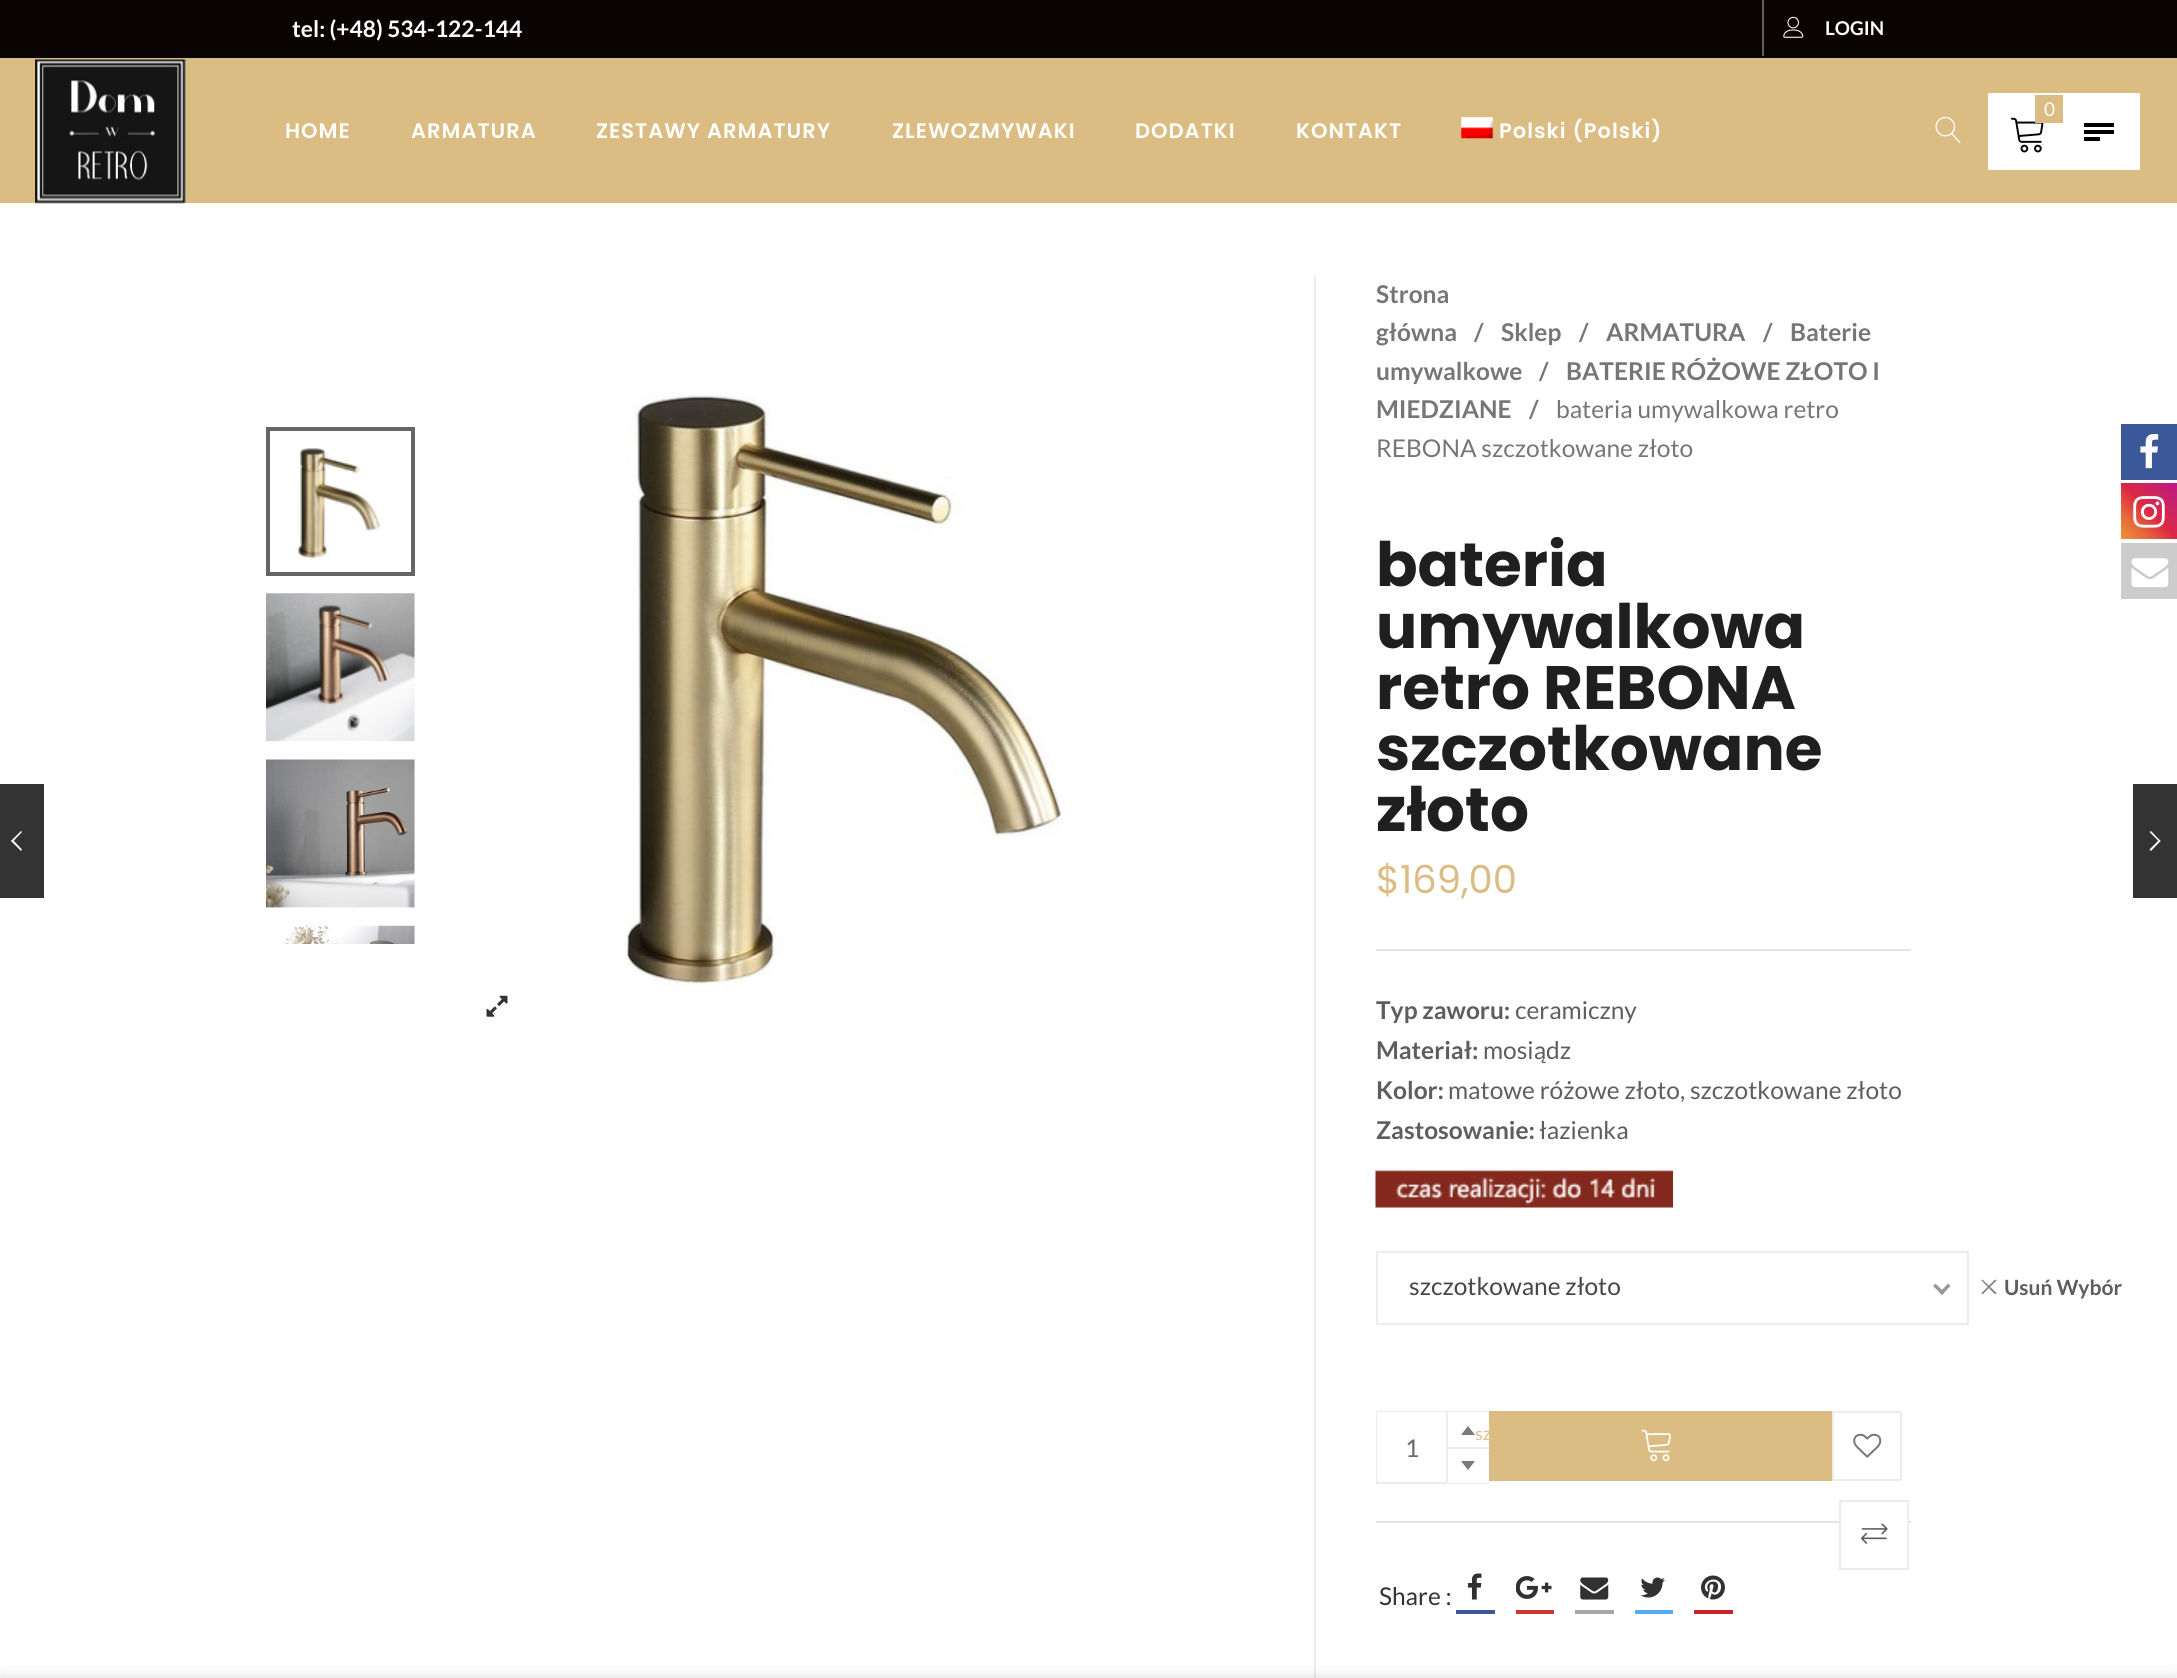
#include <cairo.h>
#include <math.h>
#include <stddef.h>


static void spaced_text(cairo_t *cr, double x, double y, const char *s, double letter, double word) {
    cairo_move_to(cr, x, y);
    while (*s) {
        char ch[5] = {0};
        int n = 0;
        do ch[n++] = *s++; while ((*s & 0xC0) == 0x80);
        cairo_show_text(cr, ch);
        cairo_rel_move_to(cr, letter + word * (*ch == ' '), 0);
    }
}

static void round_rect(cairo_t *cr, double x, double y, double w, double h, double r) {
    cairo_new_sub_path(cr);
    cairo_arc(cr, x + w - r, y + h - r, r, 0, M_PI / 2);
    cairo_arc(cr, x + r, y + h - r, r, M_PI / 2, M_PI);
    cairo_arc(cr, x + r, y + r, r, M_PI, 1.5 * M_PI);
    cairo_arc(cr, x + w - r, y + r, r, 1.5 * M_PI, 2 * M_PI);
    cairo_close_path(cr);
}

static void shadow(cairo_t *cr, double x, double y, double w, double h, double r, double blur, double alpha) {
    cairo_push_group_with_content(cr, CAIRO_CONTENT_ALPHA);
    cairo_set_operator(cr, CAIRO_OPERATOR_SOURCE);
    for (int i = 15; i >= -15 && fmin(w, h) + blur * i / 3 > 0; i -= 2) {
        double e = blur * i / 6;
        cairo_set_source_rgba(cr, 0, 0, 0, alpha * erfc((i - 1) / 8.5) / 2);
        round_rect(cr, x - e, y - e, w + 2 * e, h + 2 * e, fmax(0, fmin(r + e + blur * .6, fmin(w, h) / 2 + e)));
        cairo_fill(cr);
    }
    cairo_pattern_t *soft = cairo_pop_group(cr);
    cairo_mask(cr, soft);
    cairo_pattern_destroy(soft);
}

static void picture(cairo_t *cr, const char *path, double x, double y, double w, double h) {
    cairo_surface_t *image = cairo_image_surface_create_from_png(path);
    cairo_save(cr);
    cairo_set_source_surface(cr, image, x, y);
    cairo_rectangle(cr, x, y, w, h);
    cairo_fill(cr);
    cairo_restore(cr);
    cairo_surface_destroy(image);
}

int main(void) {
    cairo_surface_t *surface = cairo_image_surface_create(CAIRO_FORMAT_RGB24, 2177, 1678);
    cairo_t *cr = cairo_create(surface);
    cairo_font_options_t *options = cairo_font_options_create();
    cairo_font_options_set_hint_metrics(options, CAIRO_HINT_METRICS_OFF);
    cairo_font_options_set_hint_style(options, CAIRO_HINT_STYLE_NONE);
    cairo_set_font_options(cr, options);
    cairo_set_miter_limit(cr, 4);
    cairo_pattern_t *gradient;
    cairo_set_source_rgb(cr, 1, 1, 1);
    cairo_paint(cr);
    cairo_set_source_rgb(cr, 0.039, 0.012, 0.012);
    cairo_rectangle(cr, 0, 0, 2177, 58);
    cairo_fill(cr);
    cairo_select_font_face(cr, "Lato", CAIRO_FONT_SLANT_NORMAL, CAIRO_FONT_WEIGHT_BOLD);
    cairo_set_font_size(cr, 22.75);
    cairo_set_source_rgb(cr, 1, 1, 1);
    cairo_move_to(cr, 292, 37);
    cairo_show_text(cr, "tel: (+48) 534-122-144");
    cairo_set_source_rgb(cr, 0.384, 0.369, 0.369);
    cairo_rectangle(cr, 1762, 0, 2, 56);
    cairo_fill(cr);
    picture(cr, "img1.png", 1783, 16, 21, 22);
    cairo_set_font_size(cr, 19);
    cairo_set_source_rgb(cr, 1, 1, 1);
    cairo_move_to(cr, 1825, 35);
    cairo_show_text(cr, "LOGIN");
    cairo_set_source_rgb(cr, 0.859, 0.737, 0.514);
    cairo_rectangle(cr, 0, 58, 2177, 145);
    cairo_fill(cr);
    picture(cr, "img2.png", 35, 59, 151, 145);
    cairo_set_source_rgb(cr, 1, 1, 1);
    cairo_rectangle(cr, 1988, 93, 152, 77);
    cairo_fill(cr);
    picture(cr, "img3.png", 2010, 117, 34, 36);
    cairo_set_source_rgb(cr, 0.859, 0.737, 0.514);
    cairo_rectangle(cr, 2035, 95, 28, 28);
    cairo_fill(cr);
    cairo_select_font_face(cr, "Lato", CAIRO_FONT_SLANT_NORMAL, CAIRO_FONT_WEIGHT_NORMAL);
    cairo_set_source_rgb(cr, 1, 1, 1);
    cairo_move_to(cr, 2044, 116);
    cairo_show_text(cr, "0");
    cairo_select_font_face(cr, "Poppins SemiBold", CAIRO_FONT_SLANT_NORMAL, CAIRO_FONT_WEIGHT_NORMAL);
    cairo_set_font_size(cr, 21);
    spaced_text(cr, 285, 138, "HOME", 1, 0);
    spaced_text(cr, 411, 138, "ARMATURA", 1, 0);
    spaced_text(cr, 596, 138, "ZESTAWY ARMATURY", 1, 0);
    spaced_text(cr, 892, 138, "ZLEWOZMYWAKI", 1, 0);
    spaced_text(cr, 1135, 138, "DODATKI", 1, 0);
    spaced_text(cr, 1296, 138, "KONTAKT", 1, 0);
    picture(cr, "img4.png", 1461, 117, 33, 22);
    spaced_text(cr, 1499, 138, "Polski (Polski)", 1, 0);
    picture(cr, "img5.png", 1935, 116, 26, 27);
    cairo_set_source_rgb(cr, 0, 0, 0);
    cairo_rectangle(cr, 2084, 123, 30, 4);
    cairo_fill(cr);
    cairo_rectangle(cr, 2084, 130, 30, 4);
    cairo_fill(cr);
    cairo_rectangle(cr, 2084, 137, 16, 4);
    cairo_fill(cr);
    picture(cr, "img6.png", 297, 448, 84, 111);
    cairo_rectangle(cr, 268, 429, 145, 145);
    cairo_set_source_rgb(cr, 0.396, 0.396, 0.396);
    cairo_set_line_width(cr, 4);
    cairo_stroke(cr);
    picture(cr, "img7.png", 266, 593, 149, 149);
    picture(cr, "img8.png", 266, 759, 149, 149);
    picture(cr, "img9.png", 283, 925, 132, 19);
    picture(cr, "img10.png", 625, 394, 446, 603);
    picture(cr, "img11.png", 486, 995, 22, 22);
    cairo_set_source_rgb(cr, 0.929, 0.929, 0.929);
    cairo_rectangle(cr, 1314, 275, 2, 1403);
    cairo_fill(cr);
    cairo_select_font_face(cr, "Lato", CAIRO_FONT_SLANT_NORMAL, CAIRO_FONT_WEIGHT_BOLD);
    cairo_set_font_size(cr, 24.5);
    cairo_set_source_rgb(cr, 0.463, 0.463, 0.463);
    cairo_move_to(cr, 1376, 303);
    cairo_show_text(cr, "Strona");
    cairo_move_to(cr, 1376, 341);
    cairo_show_text(cr, "główna");
    cairo_move_to(cr, 1474, 341);
    cairo_show_text(cr, "/");
    cairo_move_to(cr, 1501, 341);
    cairo_show_text(cr, "Sklep");
    cairo_move_to(cr, 1579, 341);
    cairo_show_text(cr, "/");
    cairo_move_to(cr, 1606, 341);
    cairo_show_text(cr, "ARMATURA");
    cairo_move_to(cr, 1763, 341);
    cairo_show_text(cr, "/");
    cairo_move_to(cr, 1790, 341);
    cairo_show_text(cr, "Baterie");
    cairo_move_to(cr, 1376, 380);
    cairo_show_text(cr, "umywalkowe");
    cairo_move_to(cr, 1539, 380);
    cairo_show_text(cr, "/");
    cairo_move_to(cr, 1566, 380);
    cairo_show_text(cr, "BATERIE RÓŻOWE ZŁOTO I");
    cairo_move_to(cr, 1376, 418);
    cairo_show_text(cr, "MIEDZIANE");
    cairo_move_to(cr, 1529, 418);
    cairo_show_text(cr, "/");
    cairo_select_font_face(cr, "Lato", CAIRO_FONT_SLANT_NORMAL, CAIRO_FONT_WEIGHT_NORMAL);
    cairo_move_to(cr, 1556, 418);
    cairo_show_text(cr, "bateria umywalkowa retro");
    cairo_move_to(cr, 1376, 457);
    cairo_show_text(cr, "REBONA szczotkowane złoto");
    cairo_select_font_face(cr, "Poppins", CAIRO_FONT_SLANT_NORMAL, CAIRO_FONT_WEIGHT_BOLD);
    cairo_set_font_size(cr, 61.25);
    cairo_set_source_rgb(cr, 0.122, 0.122, 0.122);
    cairo_move_to(cr, 1376, 586);
    cairo_show_text(cr, "bateria");
    cairo_move_to(cr, 1376, 648);
    cairo_show_text(cr, "umywalkowa");
    cairo_move_to(cr, 1376, 709);
    cairo_show_text(cr, "retro REBONA");
    cairo_move_to(cr, 1376, 770);
    cairo_show_text(cr, "szczotkowane");
    cairo_move_to(cr, 1376, 831);
    cairo_show_text(cr, "złoto");
    cairo_set_source_rgb(cr, 0.894, 0.894, 0.894);
    cairo_rectangle(cr, 1376, 949, 535, 2);
    cairo_fill(cr);
    cairo_select_font_face(cr, "Poppins", CAIRO_FONT_SLANT_NORMAL, CAIRO_FONT_WEIGHT_NORMAL);
    cairo_set_font_size(cr, 38.5);
    cairo_set_source_rgb(cr, 0.859, 0.737, 0.514);
    cairo_move_to(cr, 1376, 893);
    cairo_show_text(cr, "$169,00");
    cairo_select_font_face(cr, "Lato", CAIRO_FONT_SLANT_NORMAL, CAIRO_FONT_WEIGHT_BOLD);
    cairo_set_font_size(cr, 24.5);
    cairo_set_source_rgb(cr, 0.369, 0.369, 0.369);
    cairo_move_to(cr, 1376, 1019);
    cairo_show_text(cr, "Typ zaworu:");
    cairo_select_font_face(cr, "Lato", CAIRO_FONT_SLANT_NORMAL, CAIRO_FONT_WEIGHT_NORMAL);
    cairo_move_to(cr, 1515, 1019);
    cairo_show_text(cr, "ceramiczny");
    cairo_select_font_face(cr, "Lato", CAIRO_FONT_SLANT_NORMAL, CAIRO_FONT_WEIGHT_BOLD);
    cairo_move_to(cr, 1376, 1059);
    cairo_show_text(cr, "Materiał:");
    cairo_select_font_face(cr, "Lato", CAIRO_FONT_SLANT_NORMAL, CAIRO_FONT_WEIGHT_NORMAL);
    cairo_move_to(cr, 1483, 1059);
    cairo_show_text(cr, "mosiądz");
    cairo_select_font_face(cr, "Lato", CAIRO_FONT_SLANT_NORMAL, CAIRO_FONT_WEIGHT_BOLD);
    cairo_move_to(cr, 1376, 1099);
    cairo_show_text(cr, "Kolor:");
    cairo_select_font_face(cr, "Lato", CAIRO_FONT_SLANT_NORMAL, CAIRO_FONT_WEIGHT_NORMAL);
    cairo_move_to(cr, 1448, 1099);
    cairo_show_text(cr, "matowe różowe złoto, szczotkowane złoto");
    cairo_select_font_face(cr, "Lato", CAIRO_FONT_SLANT_NORMAL, CAIRO_FONT_WEIGHT_BOLD);
    cairo_move_to(cr, 1376, 1139);
    cairo_show_text(cr, "Zastosowanie:");
    cairo_select_font_face(cr, "Lato", CAIRO_FONT_SLANT_NORMAL, CAIRO_FONT_WEIGHT_NORMAL);
    cairo_move_to(cr, 1539, 1139);
    cairo_show_text(cr, "łazienka");
    picture(cr, "img12.png", 1375, 1170, 298, 38);
    cairo_rectangle(cr, 1377, 1252, 591, 72);
    cairo_set_source_rgb(cr, 0.922, 0.922, 0.922);
    cairo_set_line_width(cr, 2);
    cairo_stroke(cr);
    cairo_set_source_rgb(cr, 0.275, 0.275, 0.275);
    cairo_move_to(cr, 1409, 1295);
    cairo_show_text(cr, "szczotkowane złoto");
    cairo_set_source_rgb(cr, 0.6, 0.6, 0.6);
    cairo_new_path(cr);
    cairo_move_to(cr, 1948, 1283.5);
    cairo_line_to(cr, 1950.5, 1286);
    cairo_line_to(cr, 1942, 1295);
    cairo_line_to(cr, 1939.5, 1292.5);
    cairo_close_path(cr);
    cairo_fill(cr);
    cairo_new_path(cr);
    cairo_move_to(cr, 1935.5, 1283.5);
    cairo_line_to(cr, 1944.5, 1292.5);
    cairo_line_to(cr, 1942, 1295);
    cairo_line_to(cr, 1933, 1286);
    cairo_close_path(cr);
    cairo_fill(cr);
    cairo_set_source_rgb(cr, 0.922, 0.922, 0.922);
    cairo_rectangle(cr, 1376, 1411, 113, 1);
    cairo_fill(cr);
    cairo_rectangle(cr, 1376, 1482, 113, 2);
    cairo_fill(cr);
    cairo_rectangle(cr, 1376, 1411, 2, 73);
    cairo_fill(cr);
    cairo_rectangle(cr, 1378, 1413, 68, 68);
    cairo_set_source_rgb(cr, 1, 1, 1);
    cairo_stroke(cr);
    cairo_set_source_rgb(cr, 0.922, 0.922, 0.922);
    cairo_rectangle(cr, 1446, 1447, 45, 2);
    cairo_fill(cr);
    cairo_set_source_rgb(cr, 0.859, 0.737, 0.514);
    cairo_rectangle(cr, 1489, 1411, 343, 70);
    cairo_fill(cr);
    cairo_set_font_size(cr, 18);
    cairo_set_source_rgb(cr, 0.871, 0.761, 0.557);
    cairo_move_to(cr, 1475, 1440);
    cairo_show_text(cr, "sz");
    cairo_set_source_rgb(cr, 0.522, 0.522, 0.522);
    cairo_new_path(cr);
    cairo_move_to(cr, 1982.5, 1279.5);
    cairo_line_to(cr, 1996.5, 1293);
    cairo_line_to(cr, 1995, 1294.5);
    cairo_line_to(cr, 1981.5, 1280.5);
    cairo_close_path(cr);
    cairo_fill(cr);
    cairo_new_path(cr);
    cairo_move_to(cr, 1981.5, 1293);
    cairo_line_to(cr, 1995, 1279.5);
    cairo_line_to(cr, 1996.5, 1280.5);
    cairo_line_to(cr, 1982.5, 1294.5);
    cairo_close_path(cr);
    cairo_fill(cr);
    cairo_select_font_face(cr, "Lato", CAIRO_FONT_SLANT_NORMAL, CAIRO_FONT_WEIGHT_BOLD);
    cairo_set_font_size(cr, 21);
    cairo_set_source_rgb(cr, 0.369, 0.369, 0.369);
    cairo_move_to(cr, 2004, 1295);
    cairo_show_text(cr, "Usuń Wybór");
    cairo_select_font_face(cr, "Lato", CAIRO_FONT_SLANT_NORMAL, CAIRO_FONT_WEIGHT_NORMAL);
    cairo_set_font_size(cr, 24.5);
    cairo_set_source_rgb(cr, 0.408, 0.408, 0.408);
    cairo_move_to(cr, 1405, 1457);
    cairo_show_text(cr, "1");
    cairo_set_source_rgb(cr, 0.922, 0.922, 0.922);
    cairo_rectangle(cr, 1446, 1412, 2, 70);
    cairo_fill(cr);
    cairo_set_source_rgb(cr, 0.478, 0.478, 0.478);
    cairo_new_path(cr);
    cairo_move_to(cr, 1475, 1435);
    cairo_line_to(cr, 1461, 1435);
    cairo_line_to(cr, 1468, 1426);
    cairo_close_path(cr);
    cairo_fill(cr);
    cairo_set_source_rgb(cr, 1, 1, 1);
    cairo_rectangle(cr, 1446, 1482, 45, 1);
    cairo_fill(cr);
    cairo_set_source_rgb(cr, 0.478, 0.478, 0.478);
    cairo_new_path(cr);
    cairo_move_to(cr, 1461, 1461);
    cairo_line_to(cr, 1475, 1461);
    cairo_line_to(cr, 1468, 1470);
    cairo_close_path(cr);
    cairo_fill(cr);
    picture(cr, "img13.png", 1641, 1429, 30, 33);
    cairo_rectangle(cr, 1833, 1412, 68, 68);
    cairo_set_source_rgb(cr, 0.922, 0.922, 0.922);
    cairo_stroke(cr);
    picture(cr, "img14.png", 1853, 1433, 29, 25);
    cairo_set_source_rgb(cr, 0.894, 0.894, 0.894);
    cairo_rectangle(cr, 1376, 1521, 535, 2);
    cairo_fill(cr);
    cairo_set_source_rgb(cr, 1, 1, 1);
    cairo_rectangle(cr, 1841, 1521, 66, 2);
    cairo_fill(cr);
    cairo_rectangle(cr, 1840, 1501, 68, 68);
    cairo_set_source_rgb(cr, 0.922, 0.922, 0.922);
    cairo_stroke(cr);
    picture(cr, "img15.png", 1860, 1523, 28, 21);
    cairo_set_source_rgb(cr, 0.2, 0.2, 0.2);
    cairo_move_to(cr, 1379, 1605);
    cairo_show_text(cr, "Share :");
    picture(cr, "img16.png", 1467, 1573, 15, 27);
    cairo_set_source_rgb(cr, 0.231, 0.349, 0.596);
    cairo_rectangle(cr, 1456, 1610, 39, 4);
    cairo_fill(cr);
    picture(cr, "img17.png", 1516, 1576, 36, 23);
    cairo_set_source_rgb(cr, 0.8, 0.216, 0.196);
    cairo_rectangle(cr, 1516, 1610, 38, 4);
    cairo_fill(cr);
    picture(cr, "img18.png", 1580, 1577, 29, 23);
    cairo_set_source_rgb(cr, 0.655, 0.655, 0.655);
    cairo_rectangle(cr, 1575, 1610, 39, 4);
    cairo_fill(cr);
    picture(cr, "img19.png", 1640, 1577, 25, 21);
    cairo_set_source_rgb(cr, 0.333, 0.675, 0.933);
    cairo_rectangle(cr, 1635, 1610, 38, 4);
    cairo_fill(cr);
    picture(cr, "img20.png", 1701, 1575, 24, 25);
    cairo_set_source_rgb(cr, 0.8, 0.129, 0.153);
    cairo_rectangle(cr, 1694, 1610, 39, 4);
    cairo_fill(cr);
    cairo_set_source_rgb(cr, 0.231, 0.349, 0.596);
    cairo_rectangle(cr, 2121, 424, 56, 56);
    cairo_fill(cr);
    picture(cr, "img21.png", 2140, 434, 19, 35);
    gradient = cairo_pattern_create_linear(2121, 539, 2177, 483);
    cairo_pattern_add_color_stop_rgba(gradient, 0, 0.941, 0.58, 0.2, 1);
    cairo_pattern_add_color_stop_rgba(gradient, 0.25, 0.902, 0.408, 0.235, 1);
    cairo_pattern_add_color_stop_rgba(gradient, 0.5, 0.863, 0.153, 0.263, 1);
    cairo_pattern_add_color_stop_rgba(gradient, 0.75, 0.8, 0.137, 0.4, 1);
    cairo_pattern_add_color_stop_rgba(gradient, 1, 0.737, 0.094, 0.533, 1);
    cairo_set_source(cr, gradient);
    cairo_pattern_destroy(gradient);
    cairo_rectangle(cr, 2121, 483, 56, 56);
    cairo_fill(cr);
    picture(cr, "img22.png", 2133, 496, 32, 32);
    cairo_set_source_rgb(cr, 0.8, 0.8, 0.8);
    cairo_rectangle(cr, 2121, 543, 56, 56);
    cairo_fill(cr);
    picture(cr, "img23.png", 2131, 558, 38, 30);
    cairo_set_source_rgb(cr, 0.2, 0.2, 0.2);
    cairo_rectangle(cr, 0, 784, 44, 114);
    cairo_fill(cr);
    cairo_set_source_rgb(cr, 1, 1, 1);
    cairo_new_path(cr);
    cairo_move_to(cr, 12.5, 839.5);
    cairo_line_to(cr, 22, 849.5);
    cairo_line_to(cr, 21, 851);
    cairo_line_to(cr, 11, 841);
    cairo_close_path(cr);
    cairo_fill(cr);
    cairo_new_path(cr);
    cairo_move_to(cr, 21, 831);
    cairo_line_to(cr, 22, 832);
    cairo_line_to(cr, 12.5, 842);
    cairo_line_to(cr, 11, 841);
    cairo_close_path(cr);
    cairo_fill(cr);
    cairo_set_source_rgb(cr, 0.2, 0.2, 0.2);
    cairo_rectangle(cr, 2133, 784, 44, 114);
    cairo_fill(cr);
    cairo_set_source_rgb(cr, 1, 1, 1);
    cairo_new_path(cr);
    cairo_move_to(cr, 2151, 831);
    cairo_line_to(cr, 2160.5, 841);
    cairo_line_to(cr, 2159.5, 842);
    cairo_line_to(cr, 2149.5, 832);
    cairo_close_path(cr);
    cairo_fill(cr);
    cairo_new_path(cr);
    cairo_move_to(cr, 2159.5, 839.5);
    cairo_line_to(cr, 2160.5, 841);
    cairo_line_to(cr, 2151, 851);
    cairo_line_to(cr, 2149.5, 849.5);
    cairo_close_path(cr);
    cairo_fill(cr);
    cairo_set_source_rgb(cr, 0, 0, 0);
    shadow(cr, 0, 1678, 2177, 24, 0, 8, 0.14);
    cairo_surface_write_to_png(surface, "page.png");
    cairo_font_options_destroy(options);
    cairo_destroy(cr);
    cairo_surface_destroy(surface);
    return 0;
}
